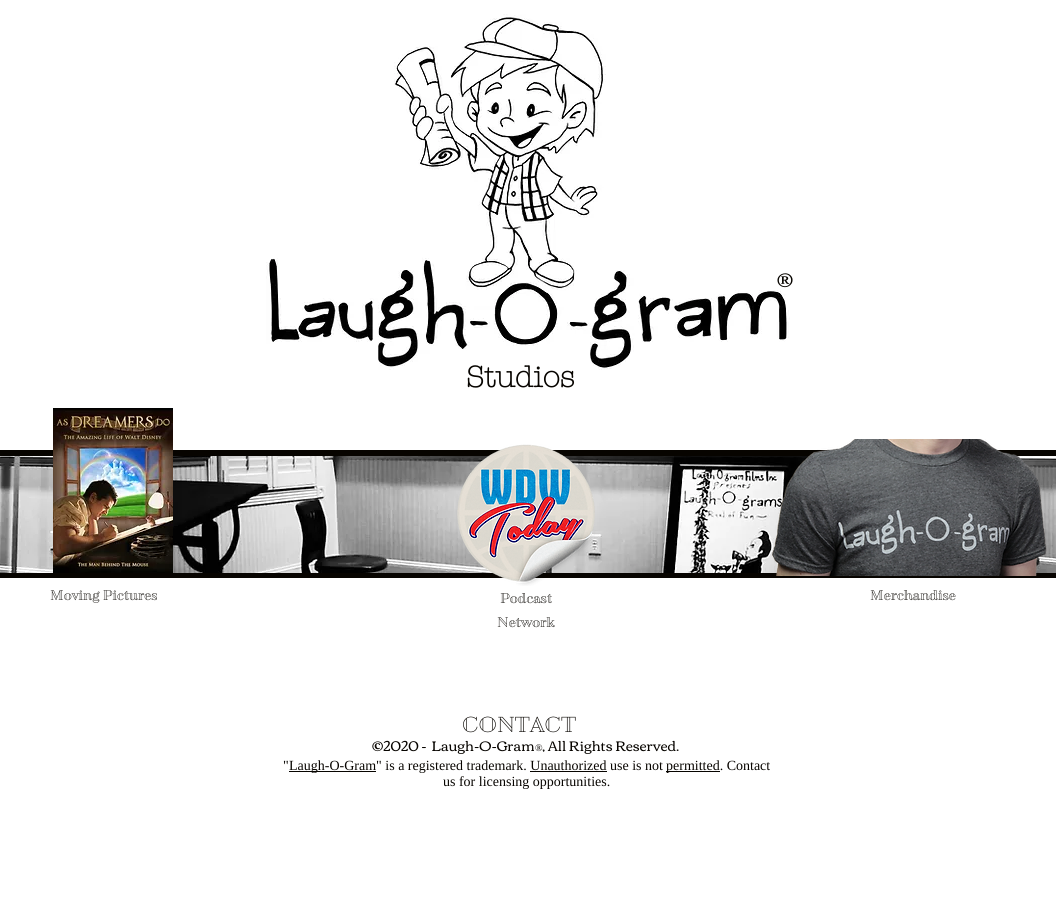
#include <cairo.h>
#include <math.h>
#include <stddef.h>


static void picture(cairo_t *cr, const char *path, double x, double y, double w, double h) {
    cairo_surface_t *image = cairo_image_surface_create_from_png(path);
    cairo_save(cr);
    cairo_set_source_surface(cr, image, x, y);
    cairo_rectangle(cr, x, y, w, h);
    cairo_fill(cr);
    cairo_restore(cr);
    cairo_surface_destroy(image);
}

int main(void) {
    cairo_surface_t *surface = cairo_image_surface_create(CAIRO_FORMAT_RGB24, 1056, 912);
    cairo_t *cr = cairo_create(surface);
    cairo_font_options_t *options = cairo_font_options_create();
    cairo_font_options_set_hint_metrics(options, CAIRO_HINT_METRICS_OFF);
    cairo_font_options_set_hint_style(options, CAIRO_HINT_STYLE_NONE);
    cairo_set_font_options(cr, options);
    cairo_set_miter_limit(cr, 4);
    cairo_set_source_rgb(cr, 1, 1, 1);
    cairo_paint(cr);
    picture(cr, "img1.png", 266, 14, 524, 356);
    cairo_select_font_face(cr, "Corben", CAIRO_FONT_SLANT_NORMAL, CAIRO_FONT_WEIGHT_NORMAL);
    cairo_set_font_size(cr, 20);
    cairo_set_source_rgb(cr, 0.031, 0.016, 0);
    cairo_move_to(cr, 777, 287);
    cairo_show_text(cr, "®");
    cairo_select_font_face(cr, "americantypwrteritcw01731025", CAIRO_FONT_SLANT_NORMAL, CAIRO_FONT_WEIGHT_BOLD);
    cairo_set_font_size(cr, 30);
    cairo_move_to(cr, 466, 387);
    cairo_show_text(cr, "Studios");
    cairo_rectangle(cr, 0, 450, 1056, 6);
    cairo_fill(cr);
    picture(cr, "img2.png", 53, 408, 120, 165);
    picture(cr, "img6.png", 173, 456, 641, 117);
    cairo_rectangle(cr, 0, 573, 1056, 5);
    cairo_fill(cr);
    picture(cr, "img3.png", 457, 444, 138, 142);
    picture(cr, "img7.png", 1009, 456, 47, 117);
    picture(cr, "img4.png", 772, 439, 275, 137);
    picture(cr, "img5.png", 0, 456, 53, 117);
    cairo_select_font_face(cr, "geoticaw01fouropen", CAIRO_FONT_SLANT_NORMAL, CAIRO_FONT_WEIGHT_BOLD);
    cairo_set_font_size(cr, 13);
    cairo_move_to(cr, 50, 600);
    cairo_show_text(cr, "Moving Pictures");
    cairo_move_to(cr, 500, 603);
    cairo_show_text(cr, "Podcast");
    cairo_move_to(cr, 497, 627);
    cairo_show_text(cr, "Network");
    cairo_move_to(cr, 870, 600);
    cairo_show_text(cr, "Merchandise");
    cairo_set_font_size(cr, 20);
    cairo_move_to(cr, 462, 732);
    cairo_show_text(cr, "CONTACT");
    cairo_select_font_face(cr, "Corben", CAIRO_FONT_SLANT_NORMAL, CAIRO_FONT_WEIGHT_NORMAL);
    cairo_set_font_size(cr, 14);
    cairo_move_to(cr, 372, 751);
    cairo_show_text(cr, "©2020 -  Laugh-O-Gram");
    cairo_select_font_face(cr, "Liberation Serif", CAIRO_FONT_SLANT_NORMAL, CAIRO_FONT_WEIGHT_NORMAL);
    cairo_set_font_size(cr, 10);
    cairo_move_to(cr, 535, 751);
    cairo_show_text(cr, "®");
    cairo_select_font_face(cr, "Corben", CAIRO_FONT_SLANT_NORMAL, CAIRO_FONT_WEIGHT_NORMAL);
    cairo_set_font_size(cr, 14);
    cairo_move_to(cr, 542, 751);
    cairo_show_text(cr, ", All Rights Reserved.");
    cairo_select_font_face(cr, "Liberation Serif", CAIRO_FONT_SLANT_NORMAL, CAIRO_FONT_WEIGHT_NORMAL);
    cairo_move_to(cr, 283, 770);
    cairo_show_text(cr, "\"");
    cairo_rectangle(cr, 289, 771, 87, 1);
    cairo_fill(cr);
    cairo_move_to(cr, 289, 770);
    cairo_show_text(cr, "Laugh-O-Gram\" is a registered trademark. Unauthorized use is not");
    cairo_rectangle(cr, 666, 771, 54, 1);
    cairo_fill(cr);
    cairo_move_to(cr, 666, 770);
    cairo_show_text(cr, "permitted. Contact");
    cairo_move_to(cr, 443, 786);
    cairo_show_text(cr, "us for licensing opportunities.");
    cairo_rectangle(cr, 530, 771, 77, 1);
    cairo_fill(cr);
    cairo_surface_write_to_png(surface, "page.png");
    cairo_font_options_destroy(options);
    cairo_destroy(cr);
    cairo_surface_destroy(surface);
    return 0;
}
